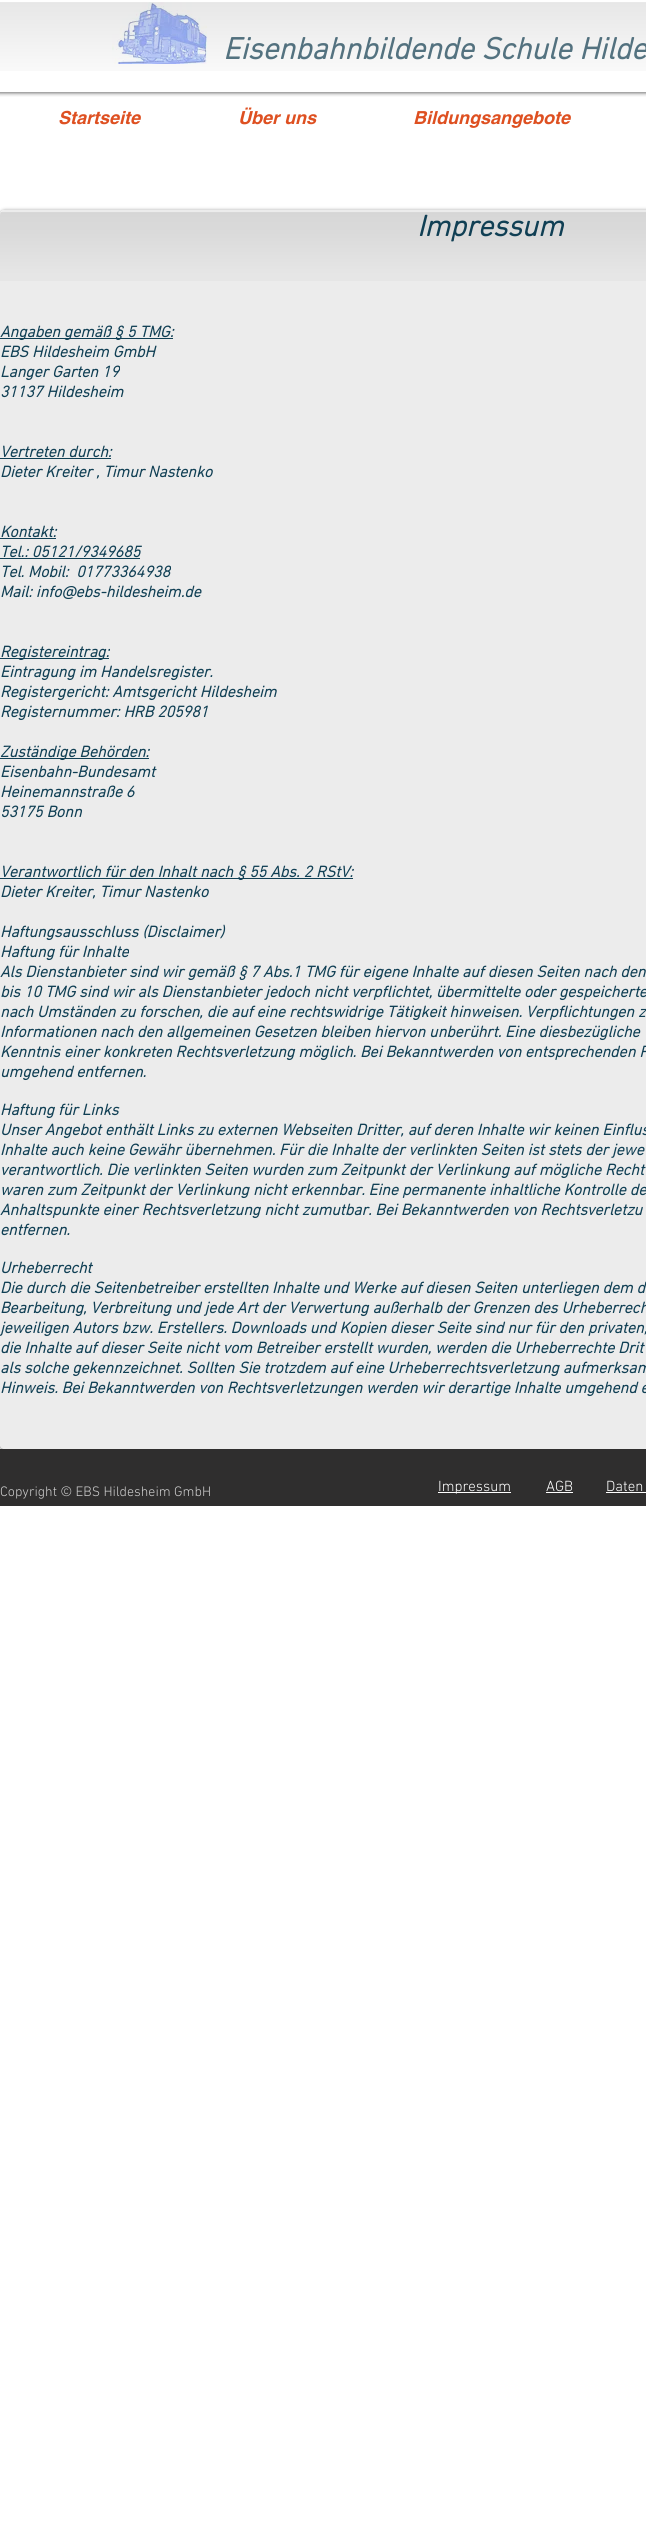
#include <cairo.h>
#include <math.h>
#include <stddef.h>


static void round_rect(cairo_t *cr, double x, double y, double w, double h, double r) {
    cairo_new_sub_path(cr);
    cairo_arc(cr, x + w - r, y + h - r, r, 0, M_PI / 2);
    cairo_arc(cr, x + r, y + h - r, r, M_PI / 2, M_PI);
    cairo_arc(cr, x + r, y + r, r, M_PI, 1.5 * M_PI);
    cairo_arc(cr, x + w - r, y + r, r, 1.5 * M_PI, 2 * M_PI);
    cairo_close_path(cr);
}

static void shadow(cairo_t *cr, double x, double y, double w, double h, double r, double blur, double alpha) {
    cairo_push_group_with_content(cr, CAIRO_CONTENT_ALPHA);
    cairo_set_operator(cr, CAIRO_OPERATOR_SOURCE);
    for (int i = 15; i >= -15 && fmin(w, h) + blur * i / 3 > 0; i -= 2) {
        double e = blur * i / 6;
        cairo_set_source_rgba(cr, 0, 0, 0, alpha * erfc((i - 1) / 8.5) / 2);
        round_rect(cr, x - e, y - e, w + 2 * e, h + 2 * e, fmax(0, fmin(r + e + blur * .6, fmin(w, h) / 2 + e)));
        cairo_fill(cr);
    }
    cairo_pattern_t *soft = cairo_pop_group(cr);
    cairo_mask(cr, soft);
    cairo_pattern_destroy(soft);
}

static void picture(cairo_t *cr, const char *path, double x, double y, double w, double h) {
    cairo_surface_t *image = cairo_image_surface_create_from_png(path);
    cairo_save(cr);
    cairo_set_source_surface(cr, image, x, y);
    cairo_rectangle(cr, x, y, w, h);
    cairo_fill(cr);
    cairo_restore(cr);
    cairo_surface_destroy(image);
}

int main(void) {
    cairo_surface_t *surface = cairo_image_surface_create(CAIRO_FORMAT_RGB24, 646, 2544);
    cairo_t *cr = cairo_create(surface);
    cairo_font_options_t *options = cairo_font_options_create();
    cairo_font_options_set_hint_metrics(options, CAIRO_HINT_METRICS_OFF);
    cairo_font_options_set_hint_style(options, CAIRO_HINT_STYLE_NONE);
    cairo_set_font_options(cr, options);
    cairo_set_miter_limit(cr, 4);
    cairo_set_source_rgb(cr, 1, 1, 1);
    cairo_paint(cr);
    picture(cr, "img2.png", 112, 2, 95, 62);
    cairo_save(cr);
    cairo_rectangle(cr, 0, 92, 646, 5);
    cairo_clip(cr);
    cairo_set_source_rgb(cr, 0, 0, 0);
    shadow(cr, -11, 1, 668, 92, 5, 2, 0.6);
    cairo_restore(cr);
    cairo_select_font_face(cr, "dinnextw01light", CAIRO_FONT_SLANT_ITALIC, CAIRO_FONT_WEIGHT_BOLD);
    cairo_set_font_size(cr, 31);
    cairo_set_source_rgb(cr, 0.341, 0.467, 0.522);
    cairo_move_to(cr, 223, 59);
    cairo_show_text(cr, "Eisenbahnbildende Schule Hilde");
    picture(cr, "img1.png", 0, 2, 646, 69);
    cairo_select_font_face(cr, "helvetica", CAIRO_FONT_SLANT_ITALIC, CAIRO_FONT_WEIGHT_BOLD);
    cairo_set_font_size(cr, 18);
    cairo_set_source_rgb(cr, 0.871, 0.314, 0.129);
    cairo_move_to(cr, 58, 124);
    cairo_show_text(cr, "Startseite");
    cairo_move_to(cr, 238, 124);
    cairo_show_text(cr, "Über uns");
    cairo_move_to(cr, 413, 124);
    cairo_show_text(cr, "Bildungsangebote");
    cairo_save(cr);
    cairo_set_fill_rule(cr, CAIRO_FILL_RULE_EVEN_ODD);
    cairo_new_path(cr);
    cairo_move_to(cr, 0, 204);
    cairo_line_to(cr, 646, 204);
    cairo_line_to(cr, 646, 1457);
    cairo_line_to(cr, 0, 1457);
    cairo_close_path(cr);
    cairo_move_to(cr, 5, 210);
    cairo_line_to(cr, 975, 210);
    cairo_curve_to(cr, 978, 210, 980, 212, 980, 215);
    cairo_line_to(cr, 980, 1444);
    cairo_curve_to(cr, 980, 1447, 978, 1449, 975, 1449);
    cairo_line_to(cr, 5, 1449);
    cairo_curve_to(cr, 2, 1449, 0, 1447, 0, 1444);
    cairo_line_to(cr, 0, 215);
    cairo_curve_to(cr, 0, 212, 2, 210, 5, 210);
    cairo_close_path(cr);
    cairo_clip(cr);
    cairo_set_source_rgb(cr, 0, 0, 0);
    shadow(cr, 0, 211, 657, 1239, 5, 2, 0.6);
    cairo_restore(cr);
    cairo_set_source_rgba(cr, 0.8, 0.8, 0.8, 0.37);
    round_rect(cr, 0, 210, 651, 1239, 5);
    cairo_fill(cr);
    picture(cr, "img3.png", 0, 212, 646, 69);
    cairo_select_font_face(cr, "dinnextw01light", CAIRO_FONT_SLANT_ITALIC, CAIRO_FONT_WEIGHT_BOLD);
    cairo_set_font_size(cr, 30);
    cairo_set_source_rgb(cr, 0.063, 0.247, 0.329);
    cairo_move_to(cr, 417, 236);
    cairo_show_text(cr, "Impressum");
    cairo_rectangle(cr, 0, 338, 173, 1);
    cairo_fill(cr);
    cairo_set_font_size(cr, 16);
    cairo_move_to(cr, 0, 337);
    cairo_show_text(cr, "Angaben gemäß § 5 TMG:");
    cairo_move_to(cr, 0, 357);
    cairo_show_text(cr, "EBS Hildesheim GmbH");
    cairo_move_to(cr, 0, 377);
    cairo_show_text(cr, "Langer Garten 19");
    cairo_move_to(cr, 0, 397);
    cairo_show_text(cr, "31137 Hildesheim");
    cairo_move_to(cr, 0, 457);
    cairo_show_text(cr, "Vertreten durch:");
    cairo_rectangle(cr, 0, 458, 111, 1);
    cairo_fill(cr);
    cairo_move_to(cr, 0, 477);
    cairo_show_text(cr, "Dieter Kreiter , Timur Nastenko");
    cairo_move_to(cr, 0, 537);
    cairo_show_text(cr, "Kontakt:");
    cairo_rectangle(cr, 0, 538, 56, 1);
    cairo_fill(cr);
    cairo_move_to(cr, 0, 557);
    cairo_show_text(cr, "Tel.: 05121/9349685");
    cairo_rectangle(cr, 0, 558, 140, 1);
    cairo_fill(cr);
    cairo_move_to(cr, 0, 577);
    cairo_show_text(cr, "Tel. Mobil:  01773364938");
    cairo_move_to(cr, 0, 597);
    cairo_show_text(cr, "Mail: info@ebs-hildesheim.de");
    cairo_rectangle(cr, 0, 658, 109, 1);
    cairo_fill(cr);
    cairo_move_to(cr, 0, 657);
    cairo_show_text(cr, "Registereintrag:");
    cairo_move_to(cr, 0, 677);
    cairo_show_text(cr, "Eintragung im Handelsregister.");
    cairo_move_to(cr, 0, 697);
    cairo_show_text(cr, "Registergericht: Amtsgericht Hildesheim");
    cairo_move_to(cr, 0, 717);
    cairo_show_text(cr, "Registernummer: HRB 205981");
    cairo_rectangle(cr, 0, 758, 149, 1);
    cairo_fill(cr);
    cairo_move_to(cr, 0, 757);
    cairo_show_text(cr, "Zuständige Behörden:");
    cairo_move_to(cr, 0, 777);
    cairo_show_text(cr, "Eisenbahn-Bundesamt");
    cairo_move_to(cr, 0, 797);
    cairo_show_text(cr, "Heinemannstraße 6");
    cairo_move_to(cr, 0, 817);
    cairo_show_text(cr, "53175 Bonn");
    cairo_rectangle(cr, 0, 878, 353, 1);
    cairo_fill(cr);
    cairo_move_to(cr, 0, 877);
    cairo_show_text(cr, "Verantwortlich für den Inhalt nach § 55 Abs. 2 RStV:");
    cairo_move_to(cr, 0, 897);
    cairo_show_text(cr, "Dieter Kreiter, Timur Nastenko");
    cairo_move_to(cr, 0, 937);
    cairo_show_text(cr, "Haftungsausschluss (Disclaimer)");
    cairo_move_to(cr, 0, 957);
    cairo_show_text(cr, "Haftung für Inhalte");
    cairo_move_to(cr, 0, 977);
    cairo_show_text(cr, "Als Dienstanbieter sind wir gemäß § 7 Abs.1 TMG für eigene Inhalte auf diesen Seiten nach den");
    cairo_move_to(cr, 0, 997);
    cairo_show_text(cr, "bis 10 TMG sind wir als Dienstanbieter jedoch nicht verpflichtet, übermittelte oder gespeicherte");
    cairo_move_to(cr, 0, 1017);
    cairo_show_text(cr, "nach Umständen zu forschen, die auf eine rechtswidrige Tätigkeit hinweisen. Verpflichtungen z");
    cairo_move_to(cr, 0, 1037);
    cairo_show_text(cr, "Informationen nach den allgemeinen Gesetzen bleiben hiervon unberührt. Eine diesbezügliche");
    cairo_move_to(cr, 0, 1057);
    cairo_show_text(cr, "Kenntnis einer konkreten Rechtsverletzung möglich. Bei Bekanntwerden von entsprechenden R");
    cairo_move_to(cr, 0, 1077);
    cairo_show_text(cr, "umgehend entfernen.");
    cairo_move_to(cr, 0, 1115);
    cairo_show_text(cr, "Haftung für Links");
    cairo_move_to(cr, 0, 1135);
    cairo_show_text(cr, "Unser Angebot enthält Links zu externen Webseiten Dritter, auf deren Inhalte wir keinen Einflus");
    cairo_move_to(cr, 0, 1155);
    cairo_show_text(cr, "Inhalte auch keine Gewähr übernehmen. Für die Inhalte der verlinkten Seiten ist stets der jewe");
    cairo_move_to(cr, 0, 1175);
    cairo_show_text(cr, "verantwortlich. Die verlinkten Seiten wurden zum Zeitpunkt der Verlinkung auf mögliche Recht");
    cairo_move_to(cr, 0, 1195);
    cairo_show_text(cr, "waren zum Zeitpunkt der Verlinkung nicht erkennbar. Eine permanente inhaltliche Kontrolle de");
    cairo_move_to(cr, 0, 1215);
    cairo_show_text(cr, "Anhaltspunkte einer Rechtsverletzung nicht zumutbar. Bei Bekanntwerden von Rechtsverletzu");
    cairo_move_to(cr, 0, 1235);
    cairo_show_text(cr, "entfernen.");
    cairo_move_to(cr, 0, 1273);
    cairo_show_text(cr, "Urheberrecht");
    cairo_move_to(cr, 0, 1293);
    cairo_show_text(cr, "Die durch die Seitenbetreiber erstellten Inhalte und Werke auf diesen Seiten unterliegen dem d");
    cairo_move_to(cr, 0, 1313);
    cairo_show_text(cr, "Bearbeitung, Verbreitung und jede Art der Verwertung außerhalb der Grenzen des Urheberrech");
    cairo_move_to(cr, 0, 1333);
    cairo_show_text(cr, "jeweiligen Autors bzw. Erstellers. Downloads und Kopien dieser Seite sind nur für den privaten,");
    cairo_move_to(cr, 0, 1353);
    cairo_show_text(cr, "die Inhalte auf dieser Seite nicht vom Betreiber erstellt wurden, werden die Urheberrechte Drit");
    cairo_move_to(cr, 0, 1373);
    cairo_show_text(cr, "als solche gekennzeichnet. Sollten Sie trotzdem auf eine Urheberrechtsverletzung aufmerksam");
    cairo_move_to(cr, 0, 1393);
    cairo_show_text(cr, "Hinweis. Bei Bekanntwerden von Rechtsverletzungen werden wir derartige Inhalte umgehend e");
    cairo_set_source_rgb(cr, 0.184, 0.18, 0.18);
    cairo_rectangle(cr, 0, 1449, 646, 57);
    cairo_fill(cr);
    cairo_select_font_face(cr, "dinnextw01light Light", CAIRO_FONT_SLANT_NORMAL, CAIRO_FONT_WEIGHT_NORMAL);
    cairo_set_font_size(cr, 14);
    cairo_set_source_rgb(cr, 0.8, 0.8, 0.8);
    cairo_move_to(cr, 0, 1496);
    cairo_show_text(cr, "Copyright © EBS Hildesheim GmbH");
    cairo_set_source_rgb(cr, 1, 1, 1);
    cairo_rectangle(cr, 438, 1492, 73, 1);
    cairo_fill(cr);
    cairo_set_font_size(cr, 15);
    cairo_move_to(cr, 438, 1491);
    cairo_show_text(cr, "Impressum");
    cairo_move_to(cr, 546, 1491);
    cairo_show_text(cr, "AGB");
    cairo_rectangle(cr, 546, 1492, 27, 1);
    cairo_fill(cr);
    cairo_move_to(cr, 606, 1491);
    cairo_show_text(cr, "Daten");
    cairo_rectangle(cr, 606, 1492, 40, 1);
    cairo_fill(cr);
    cairo_surface_write_to_png(surface, "page.png");
    cairo_font_options_destroy(options);
    cairo_destroy(cr);
    cairo_surface_destroy(surface);
    return 0;
}
